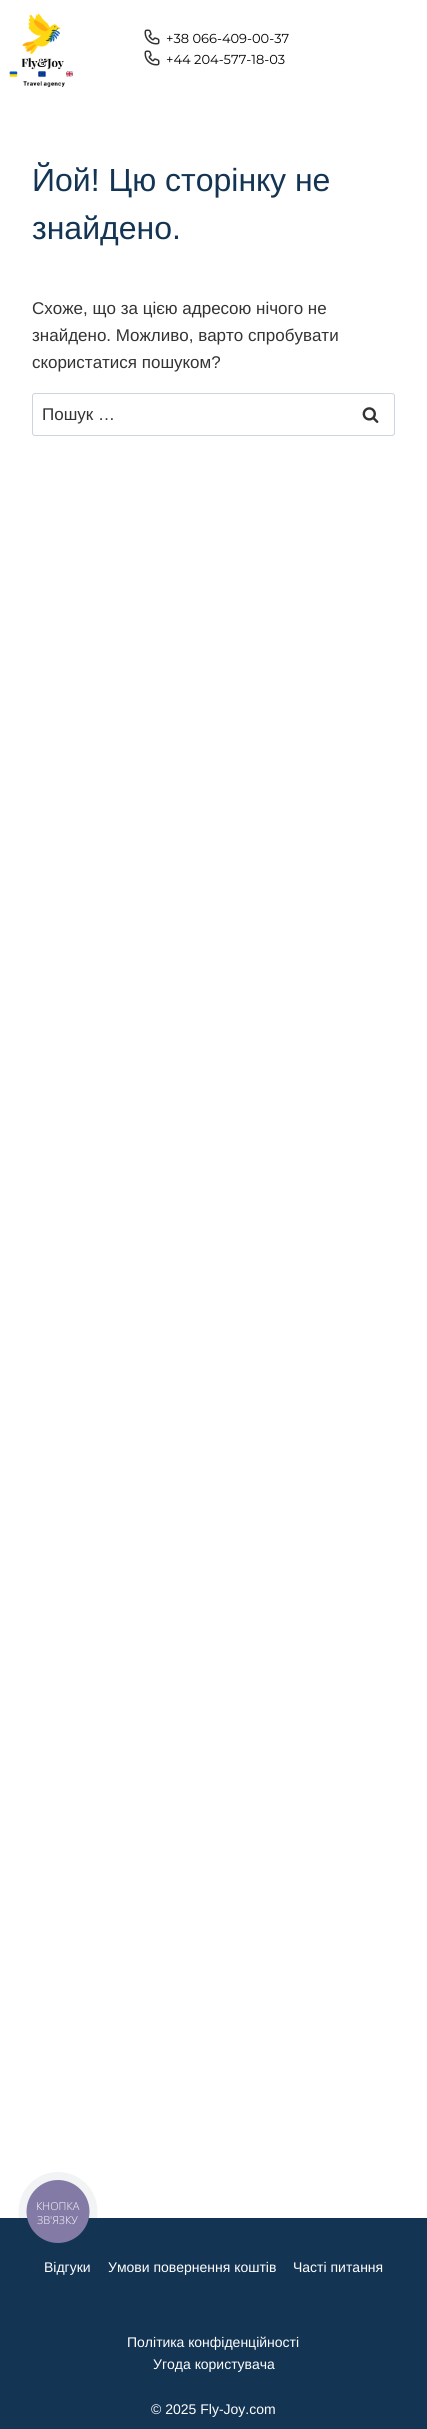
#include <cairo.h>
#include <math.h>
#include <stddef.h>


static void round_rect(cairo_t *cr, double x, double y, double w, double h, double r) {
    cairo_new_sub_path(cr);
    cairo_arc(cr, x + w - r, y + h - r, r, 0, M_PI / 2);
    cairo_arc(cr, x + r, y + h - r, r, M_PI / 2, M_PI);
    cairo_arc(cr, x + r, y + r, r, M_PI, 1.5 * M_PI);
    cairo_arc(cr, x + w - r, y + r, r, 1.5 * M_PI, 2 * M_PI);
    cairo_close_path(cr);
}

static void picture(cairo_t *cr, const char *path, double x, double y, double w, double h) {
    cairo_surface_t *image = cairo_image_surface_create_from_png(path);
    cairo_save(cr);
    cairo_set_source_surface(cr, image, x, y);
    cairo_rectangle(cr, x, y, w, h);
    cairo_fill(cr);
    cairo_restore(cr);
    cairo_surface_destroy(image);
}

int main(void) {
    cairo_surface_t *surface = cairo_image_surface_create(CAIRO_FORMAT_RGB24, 427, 2429);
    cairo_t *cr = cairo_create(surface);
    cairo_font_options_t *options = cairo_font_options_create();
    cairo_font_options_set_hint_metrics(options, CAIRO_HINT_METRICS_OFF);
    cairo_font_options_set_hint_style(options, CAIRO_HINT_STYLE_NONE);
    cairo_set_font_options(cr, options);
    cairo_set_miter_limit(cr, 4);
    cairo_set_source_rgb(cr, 1, 1, 1);
    cairo_paint(cr);
    picture(cr, "img1.png", 9, 13, 64, 75);
    picture(cr, "img2.png", 144, 29, 16, 16);
    cairo_select_font_face(cr, "Montserrat Thin", CAIRO_FONT_SLANT_NORMAL, CAIRO_FONT_WEIGHT_NORMAL);
    cairo_set_font_size(cr, 13);
    cairo_set_source_rgb(cr, 0, 0, 0);
    cairo_move_to(cr, 166, 43);
    cairo_show_text(cr, "+38 066-409-00-37");
    picture(cr, "img2.png", 144, 50, 16, 16);
    cairo_move_to(cr, 166, 64);
    cairo_show_text(cr, "+44 204-577-18-03");
    cairo_select_font_face(cr, "Liberation Sans", CAIRO_FONT_SLANT_NORMAL, CAIRO_FONT_WEIGHT_NORMAL);
    cairo_set_font_size(cr, 32);
    cairo_set_source_rgb(cr, 0.075, 0.204, 0.325);
    cairo_move_to(cr, 32, 191);
    cairo_show_text(cr, "Йой! Цю сторінку не");
    cairo_move_to(cr, 32, 239);
    cairo_show_text(cr, "знайдено.");
    cairo_set_font_size(cr, 17);
    cairo_set_source_rgb(cr, 0.2, 0.2, 0.2);
    cairo_move_to(cr, 32, 314);
    cairo_show_text(cr, "Схоже, що за цією адресою нічого не");
    cairo_move_to(cr, 32, 341);
    cairo_show_text(cr, "знайдено. Можливо, варто спробувати");
    cairo_move_to(cr, 32, 368);
    cairo_show_text(cr, "скористатися пошуком?");
    round_rect(cr, 32.5, 393.5, 362, 42, 2.5);
    cairo_set_source_rgb(cr, 0.796, 0.835, 0.878);
    cairo_set_line_width(cr, 1);
    cairo_stroke(cr);
    cairo_set_source_rgb(cr, 0.2, 0.2, 0.2);
    cairo_move_to(cr, 42, 420);
    cairo_show_text(cr, "Пошук …");
    picture(cr, "img3.png", 362, 407, 17, 16);
    cairo_set_source_rgb(cr, 0.075, 0.204, 0.325);
    cairo_rectangle(cr, 0, 2218, 427, 211);
    cairo_fill(cr);
    cairo_set_font_size(cr, 14);
    cairo_set_source_rgb(cr, 1, 1, 1);
    cairo_move_to(cr, 44, 2272);
    cairo_show_text(cr, "Відгуки");
    cairo_move_to(cr, 108, 2272);
    cairo_show_text(cr, "Умови повернення коштів");
    cairo_move_to(cr, 293, 2272);
    cairo_show_text(cr, "Часті питання");
    cairo_move_to(cr, 127, 2347);
    cairo_show_text(cr, "Політика конфіденційності");
    cairo_move_to(cr, 153, 2369);
    cairo_show_text(cr, "Угода користувача");
    cairo_move_to(cr, 151, 2414);
    cairo_show_text(cr, "© 2025 Fly-Joy.com");
    cairo_set_source_rgba(cr, 0.165, 0.251, 0.365, 0.06);
    cairo_new_path(cr);
    cairo_arc(cr, 58, 2211.5, 39.5, 0, 2 * M_PI);
    cairo_fill(cr);
    cairo_set_source_rgb(cr, 0.514, 0.482, 0.651);
    cairo_arc(cr, 58, 2211.5, 31.5, 0, 2 * M_PI);
    cairo_fill(cr);
    cairo_select_font_face(cr, "Open Sans Light", CAIRO_FONT_SLANT_NORMAL, CAIRO_FONT_WEIGHT_NORMAL);
    cairo_set_font_size(cr, 11);
    cairo_set_source_rgb(cr, 1, 1, 1);
    cairo_move_to(cr, 36, 2210);
    cairo_show_text(cr, "КНОПКА");
    cairo_move_to(cr, 37, 2224);
    cairo_show_text(cr, "ЗВ'ЯЗКУ");
    cairo_surface_write_to_png(surface, "page.png");
    cairo_font_options_destroy(options);
    cairo_destroy(cr);
    cairo_surface_destroy(surface);
    return 0;
}
